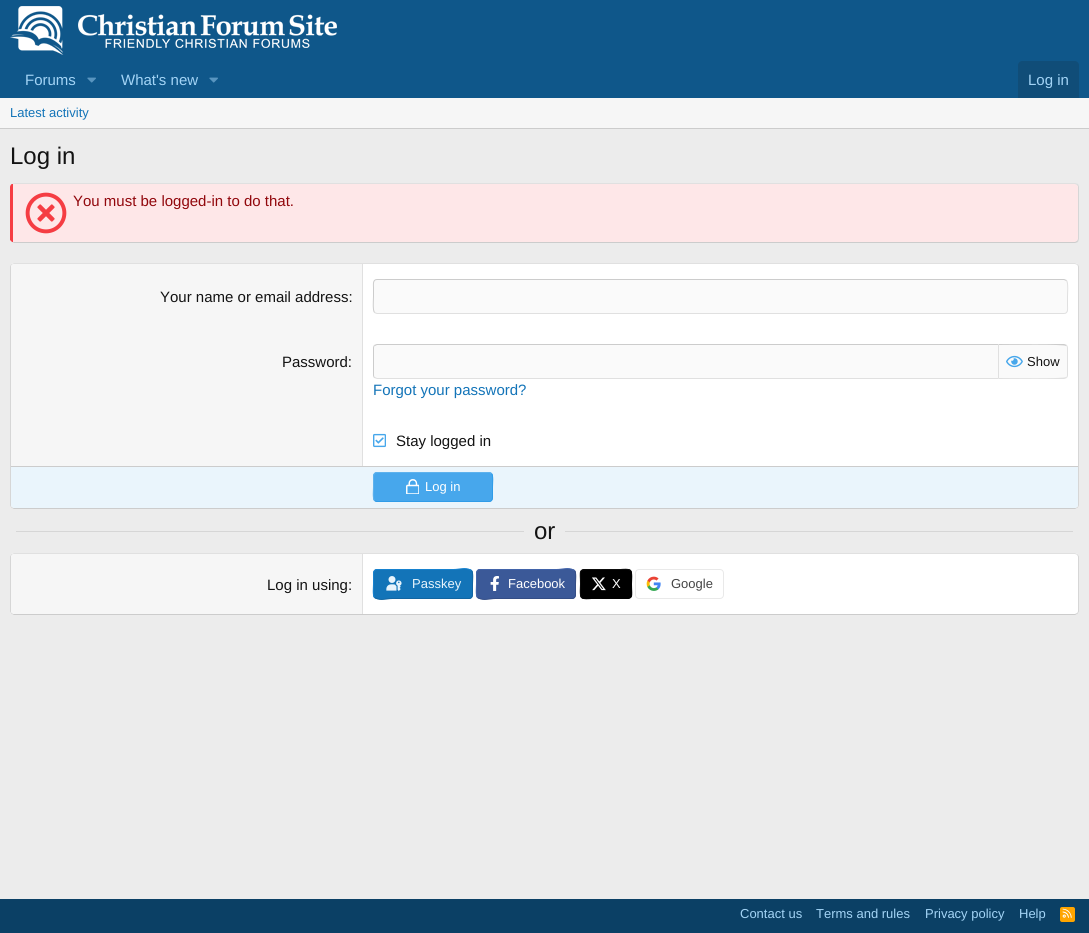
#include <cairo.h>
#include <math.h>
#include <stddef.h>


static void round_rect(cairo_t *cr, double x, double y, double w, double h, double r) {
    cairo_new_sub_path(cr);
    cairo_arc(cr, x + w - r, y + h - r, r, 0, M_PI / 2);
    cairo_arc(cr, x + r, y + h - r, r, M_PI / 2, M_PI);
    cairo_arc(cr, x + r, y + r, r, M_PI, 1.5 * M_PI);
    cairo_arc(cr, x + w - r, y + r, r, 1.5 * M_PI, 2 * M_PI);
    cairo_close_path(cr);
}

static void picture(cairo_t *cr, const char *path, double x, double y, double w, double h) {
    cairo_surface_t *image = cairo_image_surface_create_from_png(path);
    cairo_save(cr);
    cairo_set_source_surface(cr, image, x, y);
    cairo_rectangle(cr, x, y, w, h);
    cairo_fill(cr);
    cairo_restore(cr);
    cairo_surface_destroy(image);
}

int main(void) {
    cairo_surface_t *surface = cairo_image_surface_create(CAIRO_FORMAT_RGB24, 1089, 933);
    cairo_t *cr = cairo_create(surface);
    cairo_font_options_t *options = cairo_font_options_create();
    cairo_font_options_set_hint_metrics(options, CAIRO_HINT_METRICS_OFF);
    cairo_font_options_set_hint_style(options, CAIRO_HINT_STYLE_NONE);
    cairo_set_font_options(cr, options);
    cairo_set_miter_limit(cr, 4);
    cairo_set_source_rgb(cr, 0.922, 0.922, 0.922);
    cairo_paint(cr);
    cairo_set_source_rgb(cr, 0.059, 0.341, 0.541);
    cairo_rectangle(cr, 0, 0, 1089, 98);
    cairo_fill(cr);
    picture(cr, "img1.png", 10, 6, 327, 49);
    cairo_select_font_face(cr, "Liberation Sans", CAIRO_FONT_SLANT_NORMAL, CAIRO_FONT_WEIGHT_NORMAL);
    cairo_set_font_size(cr, 15);
    cairo_set_source_rgb(cr, 0.639, 0.831, 0.961);
    cairo_move_to(cr, 25, 85);
    cairo_show_text(cr, "Forums");
    picture(cr, "img2.png", 87, 77, 9, 6);
    cairo_move_to(cr, 121, 85);
    cairo_show_text(cr, "What's new");
    picture(cr, "img2.png", 209, 77, 9, 6);
    cairo_set_source_rgb(cr, 0.063, 0.302, 0.471);
    cairo_new_path(cr);
    cairo_move_to(cr, 1022, 61);
    cairo_line_to(cr, 1075, 61);
    cairo_curve_to(cr, 1077, 61, 1079, 63, 1079, 65);
    cairo_line_to(cr, 1079, 98);
    cairo_line_to(cr, 1018, 98);
    cairo_line_to(cr, 1018, 65);
    cairo_curve_to(cr, 1018, 63, 1020, 61, 1022, 61);
    cairo_close_path(cr);
    cairo_fill(cr);
    cairo_set_source_rgb(cr, 0.639, 0.831, 0.961);
    cairo_move_to(cr, 1028, 85);
    cairo_show_text(cr, "Log in");
    cairo_set_source_rgb(cr, 0.961, 0.961, 0.961);
    cairo_rectangle(cr, 0, 98, 1089, 30);
    cairo_fill(cr);
    cairo_set_source_rgb(cr, 0.8, 0.8, 0.8);
    cairo_rectangle(cr, 0, 128, 1089, 1);
    cairo_fill(cr);
    cairo_set_font_size(cr, 13);
    cairo_set_source_rgb(cr, 0.078, 0.455, 0.722);
    cairo_move_to(cr, 10, 117);
    cairo_show_text(cr, "Latest activity");
    cairo_set_font_size(cr, 24);
    cairo_set_source_rgb(cr, 0.078, 0.078, 0.078);
    cairo_move_to(cr, 10, 164);
    cairo_show_text(cr, "Log in");
    cairo_set_source_rgb(cr, 0.996, 0.906, 0.91);
    cairo_new_path(cr);
    cairo_move_to(cr, 14, 184);
    cairo_line_to(cr, 1075, 184);
    cairo_curve_to(cr, 1077, 184, 1078, 185, 1078, 187);
    cairo_line_to(cr, 1078, 239);
    cairo_curve_to(cr, 1078, 241, 1077, 242, 1075, 242);
    cairo_line_to(cr, 14, 242);
    cairo_curve_to(cr, 13, 242, 13, 241, 13, 239);
    cairo_line_to(cr, 13, 187);
    cairo_curve_to(cr, 13, 185, 13, 184, 14, 184);
    cairo_close_path(cr);
    cairo_fill(cr);
    cairo_set_source_rgb(cr, 0.878, 0.878, 0.878);
    cairo_new_path(cr);
    cairo_move_to(cr, 14, 183);
    cairo_line_to(cr, 12, 184);
    cairo_line_to(cr, 13, 184);
    cairo_line_to(cr, 1075, 184);
    cairo_line_to(cr, 1077, 185);
    cairo_line_to(cr, 1078, 184);
    cairo_line_to(cr, 1075, 183);
    cairo_close_path(cr);
    cairo_fill(cr);
    cairo_set_source_rgb(cr, 0.839, 0.839, 0.839);
    cairo_new_path(cr);
    cairo_move_to(cr, 1079, 239);
    cairo_line_to(cr, 1079, 187);
    cairo_line_to(cr, 1078, 184);
    cairo_line_to(cr, 1077, 185);
    cairo_line_to(cr, 1078, 186);
    cairo_line_to(cr, 1078, 239);
    cairo_line_to(cr, 1077, 241);
    cairo_line_to(cr, 1078, 242);
    cairo_close_path(cr);
    cairo_fill(cr);
    cairo_set_source_rgb(cr, 0.8, 0.8, 0.8);
    cairo_new_path(cr);
    cairo_move_to(cr, 14, 243);
    cairo_line_to(cr, 1075, 243);
    cairo_line_to(cr, 1078, 242);
    cairo_line_to(cr, 1077, 241);
    cairo_line_to(cr, 1075, 242);
    cairo_line_to(cr, 13, 242);
    cairo_line_to(cr, 12, 242);
    cairo_close_path(cr);
    cairo_fill(cr);
    cairo_set_source_rgb(cr, 0.961, 0.239, 0.263);
    cairo_new_path(cr);
    cairo_move_to(cr, 10, 187);
    cairo_line_to(cr, 10, 240);
    cairo_line_to(cr, 12, 242);
    cairo_line_to(cr, 13, 242);
    cairo_line_to(cr, 13, 241);
    cairo_line_to(cr, 13, 185);
    cairo_line_to(cr, 13, 184);
    cairo_line_to(cr, 12, 184);
    cairo_curve_to(cr, 11, 184, 10, 186, 10, 187);
    cairo_close_path(cr);
    cairo_fill(cr);
    picture(cr, "img3.png", 25, 192, 42, 42);
    cairo_set_font_size(cr, 15);
    cairo_set_source_rgb(cr, 0.569, 0.031, 0.047);
    cairo_move_to(cr, 73, 206);
    cairo_show_text(cr, "You must be logged-in to do that.");
    cairo_set_source_rgb(cr, 1, 1, 1);
    round_rect(cr, 10, 263, 1069, 246, 4);
    cairo_fill(cr);
    cairo_new_path(cr);
    cairo_move_to(cr, 11.5, 264.5);
    cairo_line_to(cr, 14, 263.5);
    cairo_line_to(cr, 1075, 263.5);
    cairo_line_to(cr, 1077.5, 264.5);
    cairo_set_source_rgb(cr, 0.878, 0.878, 0.878);
    cairo_set_line_width(cr, 1);
    cairo_stroke(cr);
    cairo_new_path(cr);
    cairo_move_to(cr, 1077.5, 264.5);
    cairo_curve_to(cr, 1078, 265, 1078.5, 266, 1078.5, 267);
    cairo_line_to(cr, 1078.5, 505);
    cairo_curve_to(cr, 1078.5, 506, 1078, 507, 1077.5, 507.5);
    cairo_set_source_rgb(cr, 0.839, 0.839, 0.839);
    cairo_stroke(cr);
    cairo_new_path(cr);
    cairo_move_to(cr, 1077.5, 507.5);
    cairo_line_to(cr, 1075, 508.5);
    cairo_line_to(cr, 14, 508.5);
    cairo_line_to(cr, 11.5, 507.5);
    cairo_set_source_rgb(cr, 0.8, 0.8, 0.8);
    cairo_stroke(cr);
    cairo_new_path(cr);
    cairo_move_to(cr, 11.5, 507.5);
    cairo_curve_to(cr, 11, 507, 10.5, 506, 10.5, 505);
    cairo_line_to(cr, 10.5, 267);
    cairo_curve_to(cr, 10.5, 266, 11, 265, 11.5, 264.5);
    cairo_set_source_rgb(cr, 0.839, 0.839, 0.839);
    cairo_stroke(cr);
    cairo_set_source_rgb(cr, 0.961, 0.961, 0.961);
    cairo_new_path(cr);
    cairo_move_to(cr, 14, 264);
    cairo_line_to(cr, 363, 264);
    cairo_line_to(cr, 363, 329);
    cairo_line_to(cr, 11, 329);
    cairo_line_to(cr, 11, 267);
    cairo_curve_to(cr, 11, 265.5, 12.5, 264, 14, 264);
    cairo_close_path(cr);
    cairo_fill(cr);
    cairo_set_source_rgb(cr, 0.878, 0.878, 0.878);
    cairo_rectangle(cr, 362, 264, 1, 202);
    cairo_fill(cr);
    cairo_set_source_rgb(cr, 0.078, 0.078, 0.078);
    cairo_move_to(cr, 160, 302);
    cairo_show_text(cr, "Your name or email address:");
    cairo_set_source_rgb(cr, 0.98, 0.98, 0.98);
    round_rect(cr, 373, 279, 695, 35, 4);
    cairo_fill(cr);
    cairo_new_path(cr);
    cairo_move_to(cr, 1066.5, 280.5);
    cairo_curve_to(cr, 1068.5, 283, 1067.5, 293.5, 1067.5, 296.5);
    cairo_line_to(cr, 1067.5, 305.5);
    cairo_curve_to(cr, 1067.5, 308, 1068.5, 313.5, 1064, 313.5);
    cairo_line_to(cr, 377, 313.5);
    cairo_line_to(cr, 374.5, 312.5);
    cairo_set_source_rgb(cr, 0.878, 0.878, 0.878);
    cairo_stroke(cr);
    cairo_new_path(cr);
    cairo_move_to(cr, 374.5, 312.5);
    cairo_curve_to(cr, 372.5, 310, 373.5, 299.5, 373.5, 296.5);
    cairo_line_to(cr, 373.5, 287.5);
    cairo_curve_to(cr, 373.5, 285, 372.5, 279.5, 377, 279.5);
    cairo_line_to(cr, 1064, 279.5);
    cairo_line_to(cr, 1066.5, 280.5);
    cairo_set_source_rgb(cr, 0.8, 0.8, 0.8);
    cairo_stroke(cr);
    cairo_set_source_rgb(cr, 0.961, 0.961, 0.961);
    cairo_rectangle(cr, 11, 329, 351, 137);
    cairo_fill(cr);
    cairo_set_source_rgb(cr, 0.078, 0.078, 0.078);
    cairo_move_to(cr, 282, 367);
    cairo_show_text(cr, "Password:");
    cairo_set_source_rgb(cr, 0.98, 0.98, 0.98);
    cairo_new_path(cr);
    cairo_move_to(cr, 377, 344);
    cairo_line_to(cr, 998, 344);
    cairo_line_to(cr, 998, 379);
    cairo_line_to(cr, 377, 379);
    cairo_curve_to(cr, 375, 379, 373, 377, 373, 375);
    cairo_line_to(cr, 373, 348);
    cairo_curve_to(cr, 373, 346, 375, 344, 377, 344);
    cairo_close_path(cr);
    cairo_fill(cr);
    cairo_set_source_rgb(cr, 0.8, 0.8, 0.8);
    cairo_new_path(cr);
    cairo_move_to(cr, 377, 344);
    cairo_line_to(cr, 374, 345);
    cairo_line_to(cr, 375, 346);
    cairo_line_to(cr, 377, 345);
    cairo_line_to(cr, 998, 345);
    cairo_line_to(cr, 998, 344);
    cairo_close_path(cr);
    cairo_fill(cr);
    cairo_set_source_rgb(cr, 0.878, 0.878, 0.878);
    cairo_new_path(cr);
    cairo_move_to(cr, 998, 379);
    cairo_line_to(cr, 998, 378);
    cairo_line_to(cr, 377, 378);
    cairo_line_to(cr, 375, 377);
    cairo_line_to(cr, 374, 378);
    cairo_line_to(cr, 377, 379);
    cairo_close_path(cr);
    cairo_fill(cr);
    cairo_set_source_rgb(cr, 0.8, 0.8, 0.8);
    cairo_new_path(cr);
    cairo_move_to(cr, 373, 348);
    cairo_line_to(cr, 373, 375);
    cairo_curve_to(cr, 373, 376, 373.5, 377, 374, 378);
    cairo_line_to(cr, 375, 377);
    cairo_curve_to(cr, 374, 377, 374, 376, 374, 375);
    cairo_line_to(cr, 374, 348);
    cairo_curve_to(cr, 374, 347, 374, 346, 375, 346);
    cairo_line_to(cr, 374, 345);
    cairo_curve_to(cr, 373.5, 346, 373, 347, 373, 348);
    cairo_close_path(cr);
    cairo_fill(cr);
    cairo_set_source_rgb(cr, 0.98, 0.98, 0.98);
    cairo_new_path(cr);
    cairo_move_to(cr, 998, 344);
    cairo_line_to(cr, 1064, 344);
    cairo_curve_to(cr, 1066, 344, 1068, 346, 1068, 348);
    cairo_line_to(cr, 1068, 375);
    cairo_curve_to(cr, 1068, 377, 1066, 379, 1064, 379);
    cairo_line_to(cr, 998, 379);
    cairo_close_path(cr);
    cairo_fill(cr);
    cairo_set_source_rgb(cr, 0.8, 0.8, 0.8);
    cairo_new_path(cr);
    cairo_move_to(cr, 998, 344);
    cairo_line_to(cr, 999, 345);
    cairo_curve_to(cr, 1006, 345, 1065, 344, 1066, 346);
    cairo_line_to(cr, 1067, 345);
    cairo_line_to(cr, 1064, 344);
    cairo_close_path(cr);
    cairo_fill(cr);
    cairo_set_source_rgb(cr, 0.878, 0.878, 0.878);
    cairo_new_path(cr);
    cairo_move_to(cr, 1068, 375);
    cairo_line_to(cr, 1068, 348);
    cairo_curve_to(cr, 1068, 347, 1067.5, 346, 1067, 345);
    cairo_line_to(cr, 1066, 346);
    cairo_curve_to(cr, 1067, 346, 1067, 347, 1067, 348);
    cairo_line_to(cr, 1067, 375);
    cairo_curve_to(cr, 1067, 376, 1067, 377, 1066, 377);
    cairo_line_to(cr, 1067, 378);
    cairo_curve_to(cr, 1067.5, 377, 1068, 376, 1068, 375);
    cairo_close_path(cr);
    cairo_fill(cr);
    cairo_new_path(cr);
    cairo_move_to(cr, 1064, 379);
    cairo_line_to(cr, 1067, 378);
    cairo_line_to(cr, 1066, 377);
    cairo_curve_to(cr, 1065, 379, 1006, 378, 999, 378);
    cairo_line_to(cr, 998, 379);
    cairo_close_path(cr);
    cairo_fill(cr);
    cairo_new_path(cr);
    cairo_move_to(cr, 998, 344);
    cairo_line_to(cr, 998, 379);
    cairo_line_to(cr, 999, 378);
    cairo_line_to(cr, 999, 345);
    cairo_close_path(cr);
    cairo_fill(cr);
    picture(cr, "img4.png", 1006, 355, 17, 13);
    cairo_set_font_size(cr, 13);
    cairo_set_source_rgb(cr, 0.078, 0.078, 0.078);
    cairo_move_to(cr, 1027, 366);
    cairo_show_text(cr, "Show");
    cairo_set_font_size(cr, 15);
    cairo_set_source_rgb(cr, 0.078, 0.455, 0.722);
    cairo_move_to(cr, 373, 395);
    cairo_show_text(cr, "Forgot your password?");
    picture(cr, "img5.png", 373, 433, 13, 15);
    cairo_set_source_rgb(cr, 0.078, 0.078, 0.078);
    cairo_move_to(cr, 396, 446);
    cairo_show_text(cr, "Stay logged in");
    cairo_set_source_rgba(cr, 0.91, 0.957, 0.988, 0.9);
    cairo_new_path(cr);
    cairo_move_to(cr, 11, 466);
    cairo_line_to(cr, 1078, 466);
    cairo_line_to(cr, 1078, 505);
    cairo_curve_to(cr, 1078, 506.5, 1076.5, 508, 1075, 508);
    cairo_line_to(cr, 14, 508);
    cairo_curve_to(cr, 12.5, 508, 11, 506.5, 11, 505);
    cairo_close_path(cr);
    cairo_fill(cr);
    cairo_set_source_rgb(cr, 0.8, 0.8, 0.8);
    cairo_rectangle(cr, 11, 466, 1067, 1);
    cairo_fill(cr);
    cairo_set_source_rgb(cr, 0.278, 0.655, 0.922);
    round_rect(cr, 373, 472, 120, 30, 4);
    cairo_fill(cr);
    cairo_new_path(cr);
    cairo_move_to(cr, 491.5, 473.5);
    cairo_curve_to(cr, 493.5, 475.5, 492.5, 484, 492.5, 487);
    cairo_line_to(cr, 492.5, 494.5);
    cairo_curve_to(cr, 492.5, 497, 493, 501.5, 489, 501.5);
    cairo_line_to(cr, 376.5, 501.5);
    cairo_line_to(cr, 374.5, 500.5);
    cairo_set_source_rgb(cr, 0.188, 0.612, 0.91);
    cairo_stroke(cr);
    cairo_new_path(cr);
    cairo_move_to(cr, 374.5, 500.5);
    cairo_curve_to(cr, 372.5, 498.5, 373.5, 490, 373.5, 487);
    cairo_line_to(cr, 373.5, 479.5);
    cairo_curve_to(cr, 373.5, 477, 373, 472.5, 377, 472.5);
    cairo_line_to(cr, 489.5, 472.5);
    cairo_line_to(cr, 491.5, 473.5);
    cairo_set_source_rgb(cr, 0.369, 0.698, 0.929);
    cairo_stroke(cr);
    picture(cr, "img6.png", 406, 479, 13, 15);
    cairo_set_font_size(cr, 13);
    cairo_set_source_rgb(cr, 1, 1, 1);
    cairo_move_to(cr, 425, 491);
    cairo_show_text(cr, "Log in");
    cairo_set_source_rgb(cr, 0.839, 0.839, 0.839);
    cairo_rectangle(cr, 16, 531, 508, 1);
    cairo_fill(cr);
    cairo_set_font_size(cr, 24);
    cairo_set_source_rgb(cr, 0.078, 0.078, 0.078);
    cairo_move_to(cr, 534, 539);
    cairo_show_text(cr, "or");
    cairo_set_source_rgb(cr, 0.839, 0.839, 0.839);
    cairo_rectangle(cr, 565, 531, 508, 1);
    cairo_fill(cr);
    cairo_set_source_rgb(cr, 1, 1, 1);
    round_rect(cr, 10, 553, 1069, 62, 4);
    cairo_fill(cr);
    cairo_new_path(cr);
    cairo_move_to(cr, 11.5, 554.5);
    cairo_line_to(cr, 14, 553.5);
    cairo_line_to(cr, 1075, 553.5);
    cairo_line_to(cr, 1077.5, 554.5);
    cairo_set_source_rgb(cr, 0.878, 0.878, 0.878);
    cairo_stroke(cr);
    cairo_new_path(cr);
    cairo_move_to(cr, 1077.5, 554.5);
    cairo_line_to(cr, 1078.5, 556.5);
    cairo_line_to(cr, 1078.5, 611.5);
    cairo_line_to(cr, 1077.5, 613.5);
    cairo_set_source_rgb(cr, 0.839, 0.839, 0.839);
    cairo_stroke(cr);
    cairo_new_path(cr);
    cairo_move_to(cr, 1077.5, 613.5);
    cairo_line_to(cr, 1075, 614.5);
    cairo_line_to(cr, 14, 614.5);
    cairo_line_to(cr, 11.5, 613.5);
    cairo_set_source_rgb(cr, 0.8, 0.8, 0.8);
    cairo_stroke(cr);
    cairo_new_path(cr);
    cairo_move_to(cr, 11.5, 613.5);
    cairo_line_to(cr, 10.5, 611.5);
    cairo_line_to(cr, 10.5, 556.5);
    cairo_line_to(cr, 11.5, 554.5);
    cairo_set_source_rgb(cr, 0.839, 0.839, 0.839);
    cairo_stroke(cr);
    cairo_set_source_rgb(cr, 0.961, 0.961, 0.961);
    cairo_new_path(cr);
    cairo_move_to(cr, 14, 554);
    cairo_line_to(cr, 363, 554);
    cairo_line_to(cr, 363, 614);
    cairo_line_to(cr, 14, 614);
    cairo_curve_to(cr, 12.5, 614, 11, 612.5, 11, 611);
    cairo_line_to(cr, 11, 557);
    cairo_curve_to(cr, 11, 555.5, 12.5, 554, 14, 554);
    cairo_close_path(cr);
    cairo_fill(cr);
    cairo_set_source_rgb(cr, 0.878, 0.878, 0.878);
    cairo_rectangle(cr, 362, 554, 1, 60);
    cairo_fill(cr);
    cairo_set_font_size(cr, 15);
    cairo_set_source_rgb(cr, 0.078, 0.078, 0.078);
    cairo_move_to(cr, 267, 590);
    cairo_show_text(cr, "Log in using:");
    cairo_set_source_rgb(cr, 0.078, 0.455, 0.722);
    round_rect(cr, 373, 569, 100, 30, 4);
    cairo_fill(cr);
    cairo_new_path(cr);
    cairo_move_to(cr, 471.5, 570.5);
    cairo_curve_to(cr, 473.5, 572.5, 472.5, 581, 472.5, 584);
    cairo_line_to(cr, 472.5, 591.5);
    cairo_curve_to(cr, 472.5, 594, 473, 598.5, 469, 598.5);
    cairo_line_to(cr, 392.5, 598.5);
    cairo_curve_to(cr, 386.5, 598.5, 380.5, 601, 375.5, 598);
    cairo_line_to(cr, 374.5, 597.5);
    cairo_set_source_rgb(cr, 0.071, 0.396, 0.631);
    cairo_stroke(cr);
    cairo_new_path(cr);
    cairo_move_to(cr, 374.5, 597.5);
    cairo_curve_to(cr, 372.5, 595.5, 373.5, 587, 373.5, 584);
    cairo_line_to(cr, 373.5, 576.5);
    cairo_curve_to(cr, 373.5, 574, 373, 569.5, 377, 569.5);
    cairo_line_to(cr, 453.5, 569.5);
    cairo_curve_to(cr, 459.5, 569.5, 465.5, 567, 470.5, 570);
    cairo_line_to(cr, 471.5, 570.5);
    cairo_set_source_rgb(cr, 0.09, 0.51, 0.812);
    cairo_stroke(cr);
    picture(cr, "img7.png", 386, 576, 16, 15);
    cairo_set_font_size(cr, 13);
    cairo_set_source_rgb(cr, 0.91, 0.957, 0.988);
    cairo_move_to(cr, 412, 588);
    cairo_show_text(cr, "Passkey");
    cairo_set_source_rgb(cr, 0.231, 0.349, 0.596);
    round_rect(cr, 476, 569, 100, 30, 4);
    cairo_fill(cr);
    cairo_new_path(cr);
    cairo_move_to(cr, 574.5, 570.5);
    cairo_curve_to(cr, 576.5, 572.5, 575.5, 581, 575.5, 584);
    cairo_line_to(cr, 575.5, 591.5);
    cairo_curve_to(cr, 575.5, 594, 576, 598.5, 572, 598.5);
    cairo_line_to(cr, 495.5, 598.5);
    cairo_curve_to(cr, 489.5, 598.5, 483.5, 601, 478.5, 598);
    cairo_line_to(cr, 477.5, 597.5);
    cairo_set_source_rgb(cr, 0.204, 0.306, 0.525);
    cairo_stroke(cr);
    cairo_new_path(cr);
    cairo_move_to(cr, 477.5, 597.5);
    cairo_curve_to(cr, 475.5, 595.5, 476.5, 587, 476.5, 584);
    cairo_line_to(cr, 476.5, 576.5);
    cairo_curve_to(cr, 476.5, 574, 476, 569.5, 480, 569.5);
    cairo_line_to(cr, 556.5, 569.5);
    cairo_curve_to(cr, 562.5, 569.5, 568.5, 567, 573.5, 570);
    cairo_line_to(cr, 574.5, 570.5);
    cairo_set_source_rgb(cr, 0.259, 0.392, 0.667);
    cairo_stroke(cr);
    picture(cr, "img8.png", 490, 576, 9, 15);
    cairo_set_source_rgb(cr, 1, 1, 1);
    cairo_move_to(cr, 508, 588);
    cairo_show_text(cr, "Facebook");
    cairo_set_source_rgb(cr, 0, 0, 0);
    round_rect(cr, 580, 569, 52, 30, 4);
    cairo_fill(cr);
    cairo_new_path(cr);
    cairo_move_to(cr, 630.5, 570.5);
    cairo_curve_to(cr, 632.5, 572.5, 631.5, 581, 631.5, 584);
    cairo_curve_to(cr, 631.5, 598.5, 634.5, 598.5, 620.5, 598.5);
    cairo_line_to(cr, 591.5, 598.5);
    cairo_curve_to(cr, 590, 598.5, 583.5, 599.5, 581.5, 597.5);
    cairo_stroke(cr);
    cairo_new_path(cr);
    cairo_move_to(cr, 581.5, 597.5);
    cairo_curve_to(cr, 579.5, 595.5, 580.5, 587, 580.5, 584);
    cairo_curve_to(cr, 580.5, 569.5, 577.5, 569.5, 591.5, 569.5);
    cairo_line_to(cr, 620.5, 569.5);
    cairo_curve_to(cr, 622, 569.5, 628.5, 568.5, 630.5, 570.5);
    cairo_set_source_rgb(cr, 0.051, 0.051, 0.051);
    cairo_stroke(cr);
    picture(cr, "img9.png", 592, 577, 14, 14);
    cairo_set_source_rgb(cr, 1, 1, 1);
    cairo_move_to(cr, 612, 588);
    cairo_show_text(cr, "X");
    round_rect(cr, 635.5, 569.5, 88, 29, 3.5);
    cairo_set_source_rgb(cr, 0.914, 0.914, 0.914);
    cairo_stroke(cr);
    picture(cr, "img10.png", 646, 576, 15, 15);
    cairo_set_source_rgb(cr, 0.267, 0.267, 0.267);
    cairo_move_to(cr, 671, 588);
    cairo_show_text(cr, "Google");
    cairo_set_source_rgb(cr, 0.043, 0.251, 0.396);
    cairo_rectangle(cr, 0, 899, 1089, 34);
    cairo_fill(cr);
    cairo_set_source_rgb(cr, 0.639, 0.831, 0.961);
    cairo_move_to(cr, 740, 918);
    cairo_show_text(cr, "Contact us");
    cairo_move_to(cr, 816, 918);
    cairo_show_text(cr, "Terms and rules");
    cairo_move_to(cr, 925, 918);
    cairo_show_text(cr, "Privacy policy");
    cairo_move_to(cr, 1019, 918);
    cairo_show_text(cr, "Help");
    cairo_set_source_rgb(cr, 1, 0.647, 0);
    round_rect(cr, 1060, 907, 15, 15, 2);
    cairo_fill(cr);
    picture(cr, "img11.png", 1062, 908, 10, 10);
    cairo_surface_write_to_png(surface, "page.png");
    cairo_font_options_destroy(options);
    cairo_destroy(cr);
    cairo_surface_destroy(surface);
    return 0;
}
